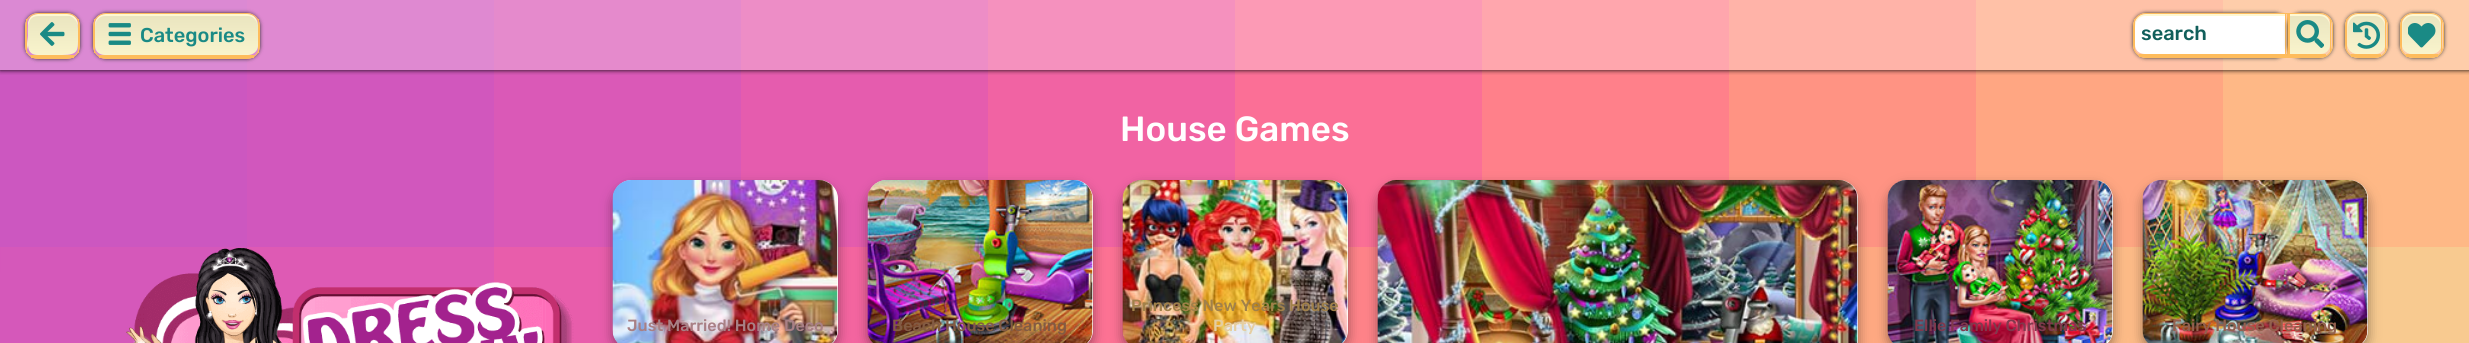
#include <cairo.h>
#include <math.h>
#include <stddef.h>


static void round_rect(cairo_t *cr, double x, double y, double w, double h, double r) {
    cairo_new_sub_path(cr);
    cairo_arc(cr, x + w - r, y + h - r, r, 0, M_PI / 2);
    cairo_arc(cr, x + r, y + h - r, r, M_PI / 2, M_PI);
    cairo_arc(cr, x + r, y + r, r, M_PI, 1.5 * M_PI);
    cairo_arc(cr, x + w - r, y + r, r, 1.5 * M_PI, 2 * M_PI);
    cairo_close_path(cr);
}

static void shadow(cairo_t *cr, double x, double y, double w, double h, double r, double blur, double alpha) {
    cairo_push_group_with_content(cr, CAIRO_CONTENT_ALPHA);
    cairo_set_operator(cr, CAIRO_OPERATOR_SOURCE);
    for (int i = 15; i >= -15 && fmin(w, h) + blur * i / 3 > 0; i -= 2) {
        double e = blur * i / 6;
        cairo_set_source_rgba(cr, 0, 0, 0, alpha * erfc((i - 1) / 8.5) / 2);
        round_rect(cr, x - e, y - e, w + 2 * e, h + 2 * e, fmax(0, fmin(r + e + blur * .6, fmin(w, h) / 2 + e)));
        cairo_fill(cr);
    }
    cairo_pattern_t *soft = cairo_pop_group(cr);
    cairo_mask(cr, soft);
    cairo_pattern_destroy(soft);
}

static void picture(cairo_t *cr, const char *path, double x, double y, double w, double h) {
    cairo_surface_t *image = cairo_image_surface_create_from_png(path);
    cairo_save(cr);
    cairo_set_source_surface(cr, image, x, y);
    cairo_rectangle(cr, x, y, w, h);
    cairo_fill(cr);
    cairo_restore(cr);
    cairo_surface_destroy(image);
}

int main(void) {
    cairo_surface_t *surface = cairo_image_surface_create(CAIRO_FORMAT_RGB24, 2469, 343);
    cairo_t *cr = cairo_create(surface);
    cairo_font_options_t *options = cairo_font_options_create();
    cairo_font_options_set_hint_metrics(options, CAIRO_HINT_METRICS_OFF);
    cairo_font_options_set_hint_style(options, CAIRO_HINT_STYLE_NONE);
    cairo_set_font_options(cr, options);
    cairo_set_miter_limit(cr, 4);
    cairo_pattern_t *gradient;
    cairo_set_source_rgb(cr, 1, 1, 1);
    cairo_paint(cr);
    picture(cr, "img1.png", 0, 0, 2469, 343);
    cairo_save(cr);
    cairo_rectangle(cr, 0, 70, 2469, 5);
    cairo_clip(cr);
    cairo_set_source_rgb(cr, 0, 0, 0);
    shadow(cr, 0, 0, 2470, 70, 0, 2.5, 1);
    cairo_restore(cr);
    cairo_set_source_rgba(cr, 1, 1, 1, 0.3);
    cairo_rectangle(cr, 0, 0, 2469, 70);
    cairo_fill(cr);
    cairo_save(cr);
    cairo_set_fill_rule(cr, CAIRO_FILL_RULE_EVEN_ODD);
    cairo_new_path(cr);
    cairo_move_to(cr, 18, 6);
    cairo_line_to(cr, 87, 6);
    cairo_line_to(cr, 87, 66);
    cairo_line_to(cr, 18, 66);
    cairo_close_path(cr);
    cairo_move_to(cr, 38, 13);
    cairo_line_to(cr, 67, 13);
    cairo_curve_to(cr, 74, 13, 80, 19, 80, 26);
    cairo_line_to(cr, 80, 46);
    cairo_curve_to(cr, 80, 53, 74, 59, 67, 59);
    cairo_line_to(cr, 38, 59);
    cairo_curve_to(cr, 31, 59, 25, 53, 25, 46);
    cairo_line_to(cr, 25, 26);
    cairo_curve_to(cr, 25, 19, 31, 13, 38, 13);
    cairo_close_path(cr);
    cairo_clip(cr);
    cairo_set_source_rgb(cr, 0.2, 0.2, 0.2);
    shadow(cr, 25, 13, 55, 46, 13, 2, 1);
    cairo_restore(cr);
    gradient = cairo_pattern_create_linear(53, 14, 53, 55);
    cairo_pattern_add_color_stop_rgba(gradient, 0, 0.914, 0.894, 0.749, 1);
    cairo_pattern_add_color_stop_rgba(gradient, 1, 0.976, 0.957, 0.8, 1);
    cairo_set_source(cr, gradient);
    cairo_pattern_destroy(gradient);
    cairo_new_path(cr);
    cairo_move_to(cr, 38, 14);
    cairo_line_to(cr, 70, 14);
    cairo_curve_to(cr, 79, 16, 78, 28, 78, 36);
    cairo_curve_to(cr, 78, 50, 79, 55, 62, 55);
    cairo_line_to(cr, 38, 55);
    cairo_curve_to(cr, 26, 55, 28, 44, 28, 36);
    cairo_curve_to(cr, 28, 28, 26, 14, 38, 14);
    cairo_close_path(cr);
    cairo_fill(cr);
    cairo_set_source_rgb(cr, 1, 0.969, 0.824);
    cairo_new_path(cr);
    cairo_move_to(cr, 38, 16);
    cairo_line_to(cr, 70, 16);
    cairo_curve_to(cr, 75, 18, 77, 22, 78, 26);
    cairo_curve_to(cr, 78, 11, 64, 14, 52, 14);
    cairo_curve_to(cr, 44, 14, 30, 11, 28, 23);
    cairo_line_to(cr, 28, 36);
    cairo_curve_to(cr, 28, 40, 26, 45, 28, 49);
    cairo_line_to(cr, 28, 26);
    cairo_line_to(cr, 30, 20);
    cairo_curve_to(cr, 32, 17, 35, 16, 38, 16);
    cairo_close_path(cr);
    cairo_fill(cr);
    round_rect(cr, 25.5, 13.5, 54, 45, 12.5);
    cairo_set_source_rgb(cr, 0.996, 0.737, 0.361);
    cairo_set_line_width(cr, 1);
    cairo_stroke(cr);
    cairo_rectangle(cr, 78, 19, 1, 34);
    cairo_fill(cr);
    cairo_rectangle(cr, 31, 55, 43, 3);
    cairo_fill(cr);
    cairo_rectangle(cr, 26, 19, 1, 34);
    cairo_fill(cr);
    picture(cr, "img2.png", 40, 22, 25, 24);
    cairo_save(cr);
    cairo_set_fill_rule(cr, CAIRO_FILL_RULE_EVEN_ODD);
    cairo_new_path(cr);
    cairo_move_to(cr, 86, 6);
    cairo_line_to(cr, 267, 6);
    cairo_line_to(cr, 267, 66);
    cairo_line_to(cr, 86, 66);
    cairo_close_path(cr);
    cairo_move_to(cr, 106, 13);
    cairo_line_to(cr, 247, 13);
    cairo_curve_to(cr, 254, 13, 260, 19, 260, 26);
    cairo_line_to(cr, 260, 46);
    cairo_curve_to(cr, 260, 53, 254, 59, 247, 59);
    cairo_line_to(cr, 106, 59);
    cairo_curve_to(cr, 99, 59, 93, 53, 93, 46);
    cairo_line_to(cr, 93, 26);
    cairo_curve_to(cr, 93, 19, 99, 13, 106, 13);
    cairo_close_path(cr);
    cairo_clip(cr);
    cairo_set_source_rgb(cr, 0.2, 0.2, 0.2);
    shadow(cr, 93, 13, 167, 46, 13, 2, 1);
    cairo_restore(cr);
    gradient = cairo_pattern_create_linear(176, 14, 176, 55);
    cairo_pattern_add_color_stop_rgba(gradient, 0, 0.914, 0.894, 0.749, 1);
    cairo_pattern_add_color_stop_rgba(gradient, 1, 0.976, 0.957, 0.8, 1);
    cairo_set_source(cr, gradient);
    cairo_pattern_destroy(gradient);
    cairo_new_path(cr);
    cairo_move_to(cr, 105, 14);
    cairo_line_to(cr, 248, 14);
    cairo_curve_to(cr, 253, 14, 258, 19, 258, 25);
    cairo_line_to(cr, 258, 46);
    cairo_curve_to(cr, 258, 51, 253, 55, 248, 55);
    cairo_line_to(cr, 105, 55);
    cairo_curve_to(cr, 99, 55, 95, 51, 95, 46);
    cairo_line_to(cr, 95, 25);
    cairo_curve_to(cr, 95, 19, 99, 14, 105, 14);
    cairo_close_path(cr);
    cairo_fill(cr);
    cairo_set_source_rgb(cr, 1, 0.969, 0.824);
    cairo_new_path(cr);
    cairo_move_to(cr, 105, 16);
    cairo_line_to(cr, 248, 16);
    cairo_curve_to(cr, 252, 16, 256, 19, 257, 24);
    cairo_curve_to(cr, 257, 18, 253, 14, 248, 14);
    cairo_line_to(cr, 105, 14);
    cairo_curve_to(cr, 99, 14, 95, 19, 95, 25);
    cairo_line_to(cr, 95, 28);
    cairo_curve_to(cr, 95, 21, 99, 16, 105, 16);
    cairo_close_path(cr);
    cairo_fill(cr);
    round_rect(cr, 93.5, 13.5, 166, 45, 12.5);
    cairo_set_source_rgb(cr, 0.996, 0.737, 0.361);
    cairo_stroke(cr);
    cairo_rectangle(cr, 258, 19, 1, 34);
    cairo_fill(cr);
    cairo_rectangle(cr, 99, 55, 155, 3);
    cairo_fill(cr);
    cairo_rectangle(cr, 94, 19, 1, 34);
    cairo_fill(cr);
    picture(cr, "img3.png", 108, 23, 23, 22);
    cairo_select_font_face(cr, "Rubik Light", CAIRO_FONT_SLANT_NORMAL, CAIRO_FONT_WEIGHT_NORMAL);
    cairo_set_font_size(cr, 20);
    cairo_set_source_rgb(cr, 0.102, 0.541, 0.522);
    cairo_move_to(cr, 140, 42);
    cairo_show_text(cr, "Categories");
    cairo_save(cr);
    cairo_set_fill_rule(cr, CAIRO_FILL_RULE_EVEN_ODD);
    cairo_new_path(cr);
    cairo_move_to(cr, 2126, 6);
    cairo_line_to(cr, 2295, 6);
    cairo_line_to(cr, 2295, 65);
    cairo_line_to(cr, 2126, 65);
    cairo_close_path(cr);
    cairo_move_to(cr, 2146, 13);
    cairo_line_to(cr, 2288, 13);
    cairo_line_to(cr, 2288, 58);
    cairo_line_to(cr, 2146, 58);
    cairo_curve_to(cr, 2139, 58, 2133, 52, 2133, 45);
    cairo_line_to(cr, 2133, 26);
    cairo_curve_to(cr, 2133, 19, 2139, 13, 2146, 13);
    cairo_close_path(cr);
    cairo_clip(cr);
    cairo_set_source_rgb(cr, 0.2, 0.2, 0.2);
    shadow(cr, 2133, 13, 155, 45, 13, 2, 1);
    cairo_restore(cr);
    cairo_set_source_rgb(cr, 1, 1, 1);
    cairo_new_path(cr);
    cairo_move_to(cr, 2145, 14);
    cairo_line_to(cr, 2285, 14);
    cairo_line_to(cr, 2285, 54);
    cairo_line_to(cr, 2145, 54);
    cairo_curve_to(cr, 2139, 54, 2135, 50, 2135, 45);
    cairo_line_to(cr, 2135, 25);
    cairo_curve_to(cr, 2135, 19, 2139, 14, 2145, 14);
    cairo_close_path(cr);
    cairo_fill(cr);
    cairo_set_source_rgb(cr, 1, 0.969, 0.824);
    cairo_new_path(cr);
    cairo_move_to(cr, 2145, 16);
    cairo_line_to(cr, 2285, 16);
    cairo_line_to(cr, 2285, 14);
    cairo_line_to(cr, 2145, 14);
    cairo_curve_to(cr, 2139, 14, 2135, 19, 2135, 25);
    cairo_line_to(cr, 2135, 28);
    cairo_curve_to(cr, 2135, 21, 2139, 16, 2145, 16);
    cairo_close_path(cr);
    cairo_fill(cr);
    cairo_new_path(cr);
    cairo_move_to(cr, 2146, 13.5);
    cairo_line_to(cr, 2287.5, 13.5);
    cairo_line_to(cr, 2287.5, 57.5);
    cairo_line_to(cr, 2146, 57.5);
    cairo_curve_to(cr, 2139, 57.5, 2133.5, 52, 2133.5, 45);
    cairo_line_to(cr, 2133.5, 26);
    cairo_curve_to(cr, 2133.5, 19, 2139, 13.5, 2146, 13.5);
    cairo_close_path(cr);
    cairo_set_source_rgb(cr, 0.996, 0.737, 0.361);
    cairo_stroke(cr);
    cairo_rectangle(cr, 2285, 13, 1, 45);
    cairo_fill(cr);
    cairo_rectangle(cr, 2139, 54, 149, 3);
    cairo_fill(cr);
    cairo_rectangle(cr, 2134, 19, 1, 32);
    cairo_fill(cr);
    cairo_set_source_rgb(cr, 0.067, 0.373, 0.357);
    cairo_move_to(cr, 2141, 40);
    cairo_show_text(cr, "search");
    cairo_save(cr);
    cairo_set_fill_rule(cr, CAIRO_FILL_RULE_EVEN_ODD);
    cairo_new_path(cr);
    cairo_move_to(cr, 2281, 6);
    cairo_line_to(cr, 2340, 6);
    cairo_line_to(cr, 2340, 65);
    cairo_line_to(cr, 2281, 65);
    cairo_close_path(cr);
    cairo_move_to(cr, 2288, 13);
    cairo_line_to(cr, 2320, 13);
    cairo_curve_to(cr, 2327, 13, 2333, 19, 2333, 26);
    cairo_line_to(cr, 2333, 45);
    cairo_curve_to(cr, 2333, 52, 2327, 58, 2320, 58);
    cairo_line_to(cr, 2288, 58);
    cairo_close_path(cr);
    cairo_clip(cr);
    cairo_set_source_rgb(cr, 0.2, 0.2, 0.2);
    shadow(cr, 2288, 13, 45, 45, 13, 2, 1);
    cairo_restore(cr);
    gradient = cairo_pattern_create_linear(2310, 14, 2310, 54);
    cairo_pattern_add_color_stop_rgba(gradient, 0, 0.914, 0.894, 0.749, 1);
    cairo_pattern_add_color_stop_rgba(gradient, 1, 0.976, 0.957, 0.8, 1);
    cairo_set_source(cr, gradient);
    cairo_pattern_destroy(gradient);
    cairo_new_path(cr);
    cairo_move_to(cr, 2290, 14);
    cairo_line_to(cr, 2320, 14);
    cairo_curve_to(cr, 2326, 14, 2330, 19, 2330, 25);
    cairo_line_to(cr, 2330, 45);
    cairo_curve_to(cr, 2330, 50, 2326, 54, 2320, 54);
    cairo_line_to(cr, 2290, 54);
    cairo_close_path(cr);
    cairo_fill(cr);
    cairo_set_source_rgb(cr, 1, 0.969, 0.824);
    cairo_new_path(cr);
    cairo_move_to(cr, 2290, 16);
    cairo_line_to(cr, 2320, 16);
    cairo_curve_to(cr, 2326, 16, 2330, 21, 2330, 28);
    cairo_curve_to(cr, 2330, 13, 2323, 14, 2310, 14);
    cairo_line_to(cr, 2290, 14);
    cairo_close_path(cr);
    cairo_fill(cr);
    cairo_new_path(cr);
    cairo_move_to(cr, 2288.5, 13.5);
    cairo_line_to(cr, 2320, 13.5);
    cairo_curve_to(cr, 2327, 13.5, 2332.5, 19, 2332.5, 26);
    cairo_line_to(cr, 2332.5, 45);
    cairo_curve_to(cr, 2332.5, 52, 2327, 57.5, 2320, 57.5);
    cairo_line_to(cr, 2288.5, 57.5);
    cairo_close_path(cr);
    cairo_set_source_rgb(cr, 0.996, 0.737, 0.361);
    cairo_stroke(cr);
    cairo_rectangle(cr, 2330, 19, 1, 32);
    cairo_fill(cr);
    cairo_rectangle(cr, 2288, 54, 38, 3);
    cairo_fill(cr);
    cairo_rectangle(cr, 2289, 13, 1, 45);
    cairo_fill(cr);
    picture(cr, "img4.png", 2296, 20, 28, 28);
    cairo_save(cr);
    cairo_set_fill_rule(cr, CAIRO_FILL_RULE_EVEN_ODD);
    cairo_new_path(cr);
    cairo_move_to(cr, 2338, 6);
    cairo_line_to(cr, 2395, 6);
    cairo_line_to(cr, 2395, 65);
    cairo_line_to(cr, 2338, 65);
    cairo_close_path(cr);
    cairo_move_to(cr, 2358, 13);
    cairo_line_to(cr, 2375, 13);
    cairo_curve_to(cr, 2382, 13, 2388, 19, 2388, 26);
    cairo_line_to(cr, 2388, 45);
    cairo_curve_to(cr, 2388, 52, 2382, 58, 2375, 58);
    cairo_line_to(cr, 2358, 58);
    cairo_curve_to(cr, 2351, 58, 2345, 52, 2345, 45);
    cairo_line_to(cr, 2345, 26);
    cairo_curve_to(cr, 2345, 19, 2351, 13, 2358, 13);
    cairo_close_path(cr);
    cairo_clip(cr);
    cairo_set_source_rgb(cr, 0.2, 0.2, 0.2);
    shadow(cr, 2345, 13, 43, 45, 13, 2, 1);
    cairo_restore(cr);
    cairo_set_source_rgb(cr, 0.976, 0.957, 0.8);
    cairo_new_path(cr);
    cairo_move_to(cr, 2358, 14);
    cairo_line_to(cr, 2375, 14);
    cairo_curve_to(cr, 2381, 14, 2385, 19, 2385, 25);
    cairo_line_to(cr, 2385, 45);
    cairo_curve_to(cr, 2385, 50, 2381, 54, 2375, 54);
    cairo_line_to(cr, 2358, 54);
    cairo_curve_to(cr, 2352, 54, 2348, 50, 2348, 45);
    cairo_line_to(cr, 2348, 25);
    cairo_curve_to(cr, 2348, 19, 2352, 14, 2358, 14);
    cairo_close_path(cr);
    cairo_fill(cr);
    picture(cr, "img5.png", 2347, 13, 38, 41);
    cairo_set_source_rgb(cr, 1, 0.969, 0.824);
    cairo_new_path(cr);
    cairo_move_to(cr, 2358, 16);
    cairo_line_to(cr, 2375, 16);
    cairo_curve_to(cr, 2381, 16, 2385, 21, 2385, 28);
    cairo_line_to(cr, 2385, 25);
    cairo_curve_to(cr, 2385, 19, 2380.5, 14, 2375, 14);
    cairo_line_to(cr, 2357.5, 14);
    cairo_curve_to(cr, 2352, 14, 2347.5, 19, 2347.5, 25);
    cairo_line_to(cr, 2347.5, 45);
    cairo_line_to(cr, 2348, 47.5);
    cairo_line_to(cr, 2348, 28);
    cairo_curve_to(cr, 2348, 21, 2352, 16, 2358, 16);
    cairo_close_path(cr);
    cairo_fill(cr);
    round_rect(cr, 2345.5, 13.5, 42, 44, 12.5);
    cairo_set_source_rgb(cr, 0.996, 0.737, 0.361);
    cairo_stroke(cr);
    cairo_rectangle(cr, 2385, 19, 1, 32);
    cairo_fill(cr);
    cairo_rectangle(cr, 2351, 54, 30, 3);
    cairo_fill(cr);
    cairo_rectangle(cr, 2346, 19, 1, 32);
    cairo_fill(cr);
    picture(cr, "img6.png", 2353, 21, 27, 28);
    cairo_save(cr);
    cairo_set_fill_rule(cr, CAIRO_FILL_RULE_EVEN_ODD);
    cairo_new_path(cr);
    cairo_move_to(cr, 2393, 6);
    cairo_line_to(cr, 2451, 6);
    cairo_line_to(cr, 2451, 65);
    cairo_line_to(cr, 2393, 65);
    cairo_close_path(cr);
    cairo_move_to(cr, 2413, 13);
    cairo_line_to(cr, 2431, 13);
    cairo_curve_to(cr, 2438, 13, 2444, 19, 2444, 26);
    cairo_line_to(cr, 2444, 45);
    cairo_curve_to(cr, 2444, 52, 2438, 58, 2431, 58);
    cairo_line_to(cr, 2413, 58);
    cairo_curve_to(cr, 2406, 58, 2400, 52, 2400, 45);
    cairo_line_to(cr, 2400, 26);
    cairo_curve_to(cr, 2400, 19, 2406, 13, 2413, 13);
    cairo_close_path(cr);
    cairo_clip(cr);
    cairo_set_source_rgb(cr, 0.2, 0.2, 0.2);
    shadow(cr, 2400, 13, 44, 45, 13, 2, 1);
    cairo_restore(cr);
    cairo_set_source_rgb(cr, 0.976, 0.957, 0.8);
    cairo_new_path(cr);
    cairo_move_to(cr, 2412, 14);
    cairo_line_to(cr, 2431, 14);
    cairo_curve_to(cr, 2437, 14, 2441, 19, 2441, 25);
    cairo_line_to(cr, 2441, 45);
    cairo_curve_to(cr, 2441, 50, 2437, 54, 2431, 54);
    cairo_line_to(cr, 2412, 54);
    cairo_curve_to(cr, 2407, 54, 2402, 50, 2402, 45);
    cairo_line_to(cr, 2402, 25);
    cairo_curve_to(cr, 2402, 19, 2407, 14, 2412, 14);
    cairo_close_path(cr);
    cairo_fill(cr);
    picture(cr, "img7.png", 2402, 13, 39, 41);
    cairo_set_source_rgb(cr, 1, 0.969, 0.824);
    cairo_new_path(cr);
    cairo_move_to(cr, 2412, 16);
    cairo_line_to(cr, 2431, 16);
    cairo_curve_to(cr, 2437, 16, 2441, 21, 2441, 28);
    cairo_line_to(cr, 2441, 47);
    cairo_line_to(cr, 2441, 45);
    cairo_line_to(cr, 2441, 25);
    cairo_curve_to(cr, 2441, 19, 2437, 14, 2431, 14);
    cairo_line_to(cr, 2412.5, 14);
    cairo_curve_to(cr, 2407, 14, 2403, 18.5, 2402.5, 24);
    cairo_curve_to(cr, 2404, 19.5, 2408, 16, 2412, 16);
    cairo_close_path(cr);
    cairo_fill(cr);
    round_rect(cr, 2400.5, 13.5, 43, 44, 12.5);
    cairo_set_source_rgb(cr, 0.996, 0.737, 0.361);
    cairo_stroke(cr);
    cairo_rectangle(cr, 2441, 19, 1, 32);
    cairo_fill(cr);
    cairo_rectangle(cr, 2406, 54, 32, 3);
    cairo_fill(cr);
    cairo_rectangle(cr, 2401, 19, 1, 32);
    cairo_fill(cr);
    picture(cr, "img8.png", 2408, 23, 28, 25);
    cairo_set_font_size(cr, 35);
    cairo_set_source_rgb(cr, 1, 1, 1);
    cairo_move_to(cr, 1120, 141);
    cairo_show_text(cr, "House Games");
    picture(cr, "img9.png", 126, 248, 448, 95);
    cairo_set_source_rgb(cr, 0, 0, 0);
    shadow(cr, 613, 186, 225, 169, 19, 6, 0.4);
    cairo_set_source_rgb(cr, 1, 1, 1);
    round_rect(cr, 613, 180, 225, 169, 19);
    cairo_fill(cr);
    picture(cr, "img10.png", 612, 180, 226, 163);
    cairo_set_font_size(cr, 16.25);
    cairo_set_source_rgb(cr, 0.659, 0.502, 0.522);
    cairo_move_to(cr, 627, 331);
    cairo_show_text(cr, "Just Married! Home Deco");
    cairo_set_source_rgb(cr, 0, 0, 0);
    shadow(cr, 868, 186, 225, 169, 19, 6, 0.4);
    cairo_set_source_rgb(cr, 1, 1, 1);
    round_rect(cr, 868, 180, 225, 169, 19);
    cairo_fill(cr);
    picture(cr, "img11.png", 867, 180, 226, 163);
    cairo_set_source_rgb(cr, 0.514, 0.357, 0.263);
    cairo_move_to(cr, 892, 331);
    cairo_show_text(cr, "Beach House Cleaning");
    cairo_set_source_rgb(cr, 0, 0, 0);
    shadow(cr, 1123, 186, 225, 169, 19, 6, 0.4);
    cairo_set_source_rgb(cr, 1, 1, 1);
    round_rect(cr, 1123, 180, 225, 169, 19);
    cairo_fill(cr);
    picture(cr, "img12.png", 1122, 180, 226, 163);
    cairo_set_source_rgb(cr, 0.631, 0.506, 0.29);
    cairo_move_to(cr, 1131, 311);
    cairo_show_text(cr, "Princess New Years House");
    cairo_set_source_rgb(cr, 0.898, 0.808, 0.631);
    cairo_move_to(cr, 1213, 331);
    cairo_show_text(cr, "Party");
    cairo_set_source_rgb(cr, 0, 0, 0);
    shadow(cr, 1378, 186, 480, 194, 19, 6, 0.4);
    cairo_set_source_rgb(cr, 1, 1, 1);
    round_rect(cr, 1378, 180, 480, 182, 19);
    cairo_fill(cr);
    picture(cr, "img13.png", 1377, 180, 481, 163);
    cairo_set_source_rgb(cr, 0, 0, 0);
    shadow(cr, 1888, 186, 225, 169, 19, 6, 0.4);
    cairo_set_source_rgb(cr, 1, 1, 1);
    round_rect(cr, 1888, 180, 225, 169, 19);
    cairo_fill(cr);
    picture(cr, "img14.png", 1887, 180, 226, 163);
    cairo_set_source_rgb(cr, 0.502, 0.224, 0.302);
    cairo_move_to(cr, 1914, 331);
    cairo_show_text(cr, "Ellie Family Christmas");
    cairo_set_source_rgb(cr, 0, 0, 0);
    shadow(cr, 2143, 186, 225, 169, 19, 6, 0.4);
    cairo_set_source_rgb(cr, 1, 1, 1);
    round_rect(cr, 2143, 180, 225, 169, 19);
    cairo_fill(cr);
    picture(cr, "img15.png", 2142, 180, 226, 163);
    cairo_set_source_rgb(cr, 0.576, 0.376, 0.306);
    cairo_move_to(cr, 2172, 331);
    cairo_show_text(cr, "Fairy House Cleaning");
    cairo_surface_write_to_png(surface, "page.png");
    cairo_font_options_destroy(options);
    cairo_destroy(cr);
    cairo_surface_destroy(surface);
    return 0;
}
